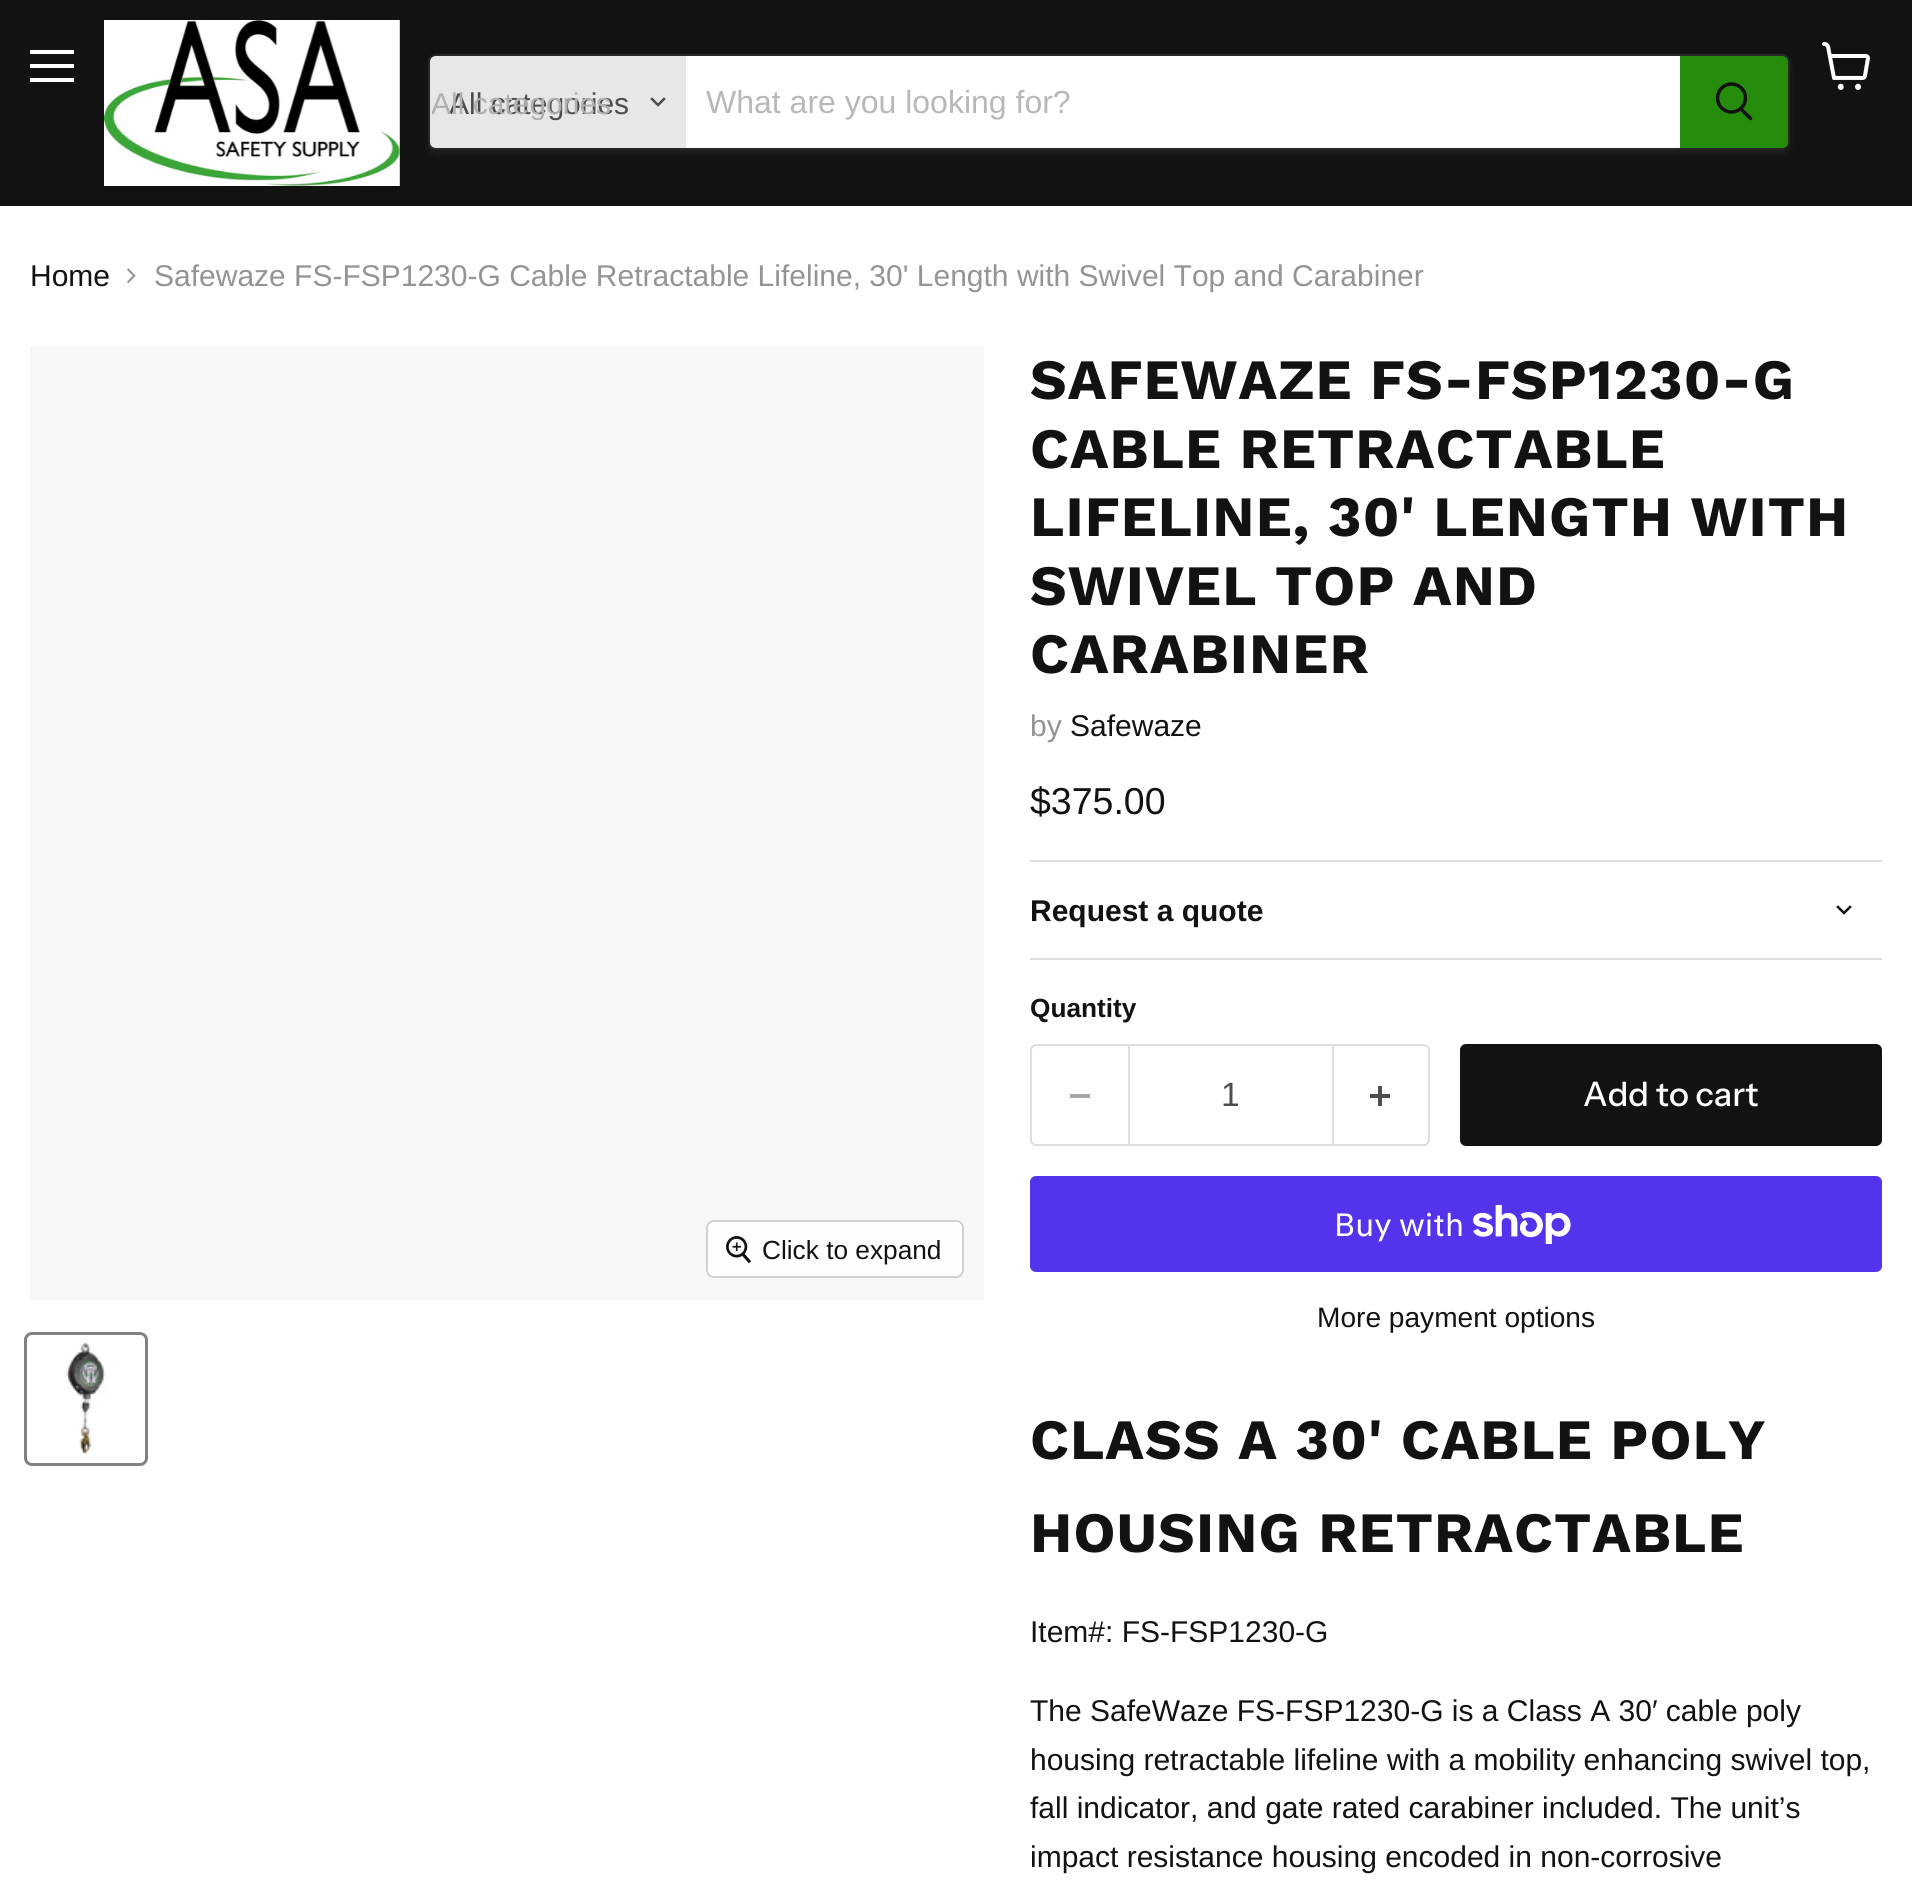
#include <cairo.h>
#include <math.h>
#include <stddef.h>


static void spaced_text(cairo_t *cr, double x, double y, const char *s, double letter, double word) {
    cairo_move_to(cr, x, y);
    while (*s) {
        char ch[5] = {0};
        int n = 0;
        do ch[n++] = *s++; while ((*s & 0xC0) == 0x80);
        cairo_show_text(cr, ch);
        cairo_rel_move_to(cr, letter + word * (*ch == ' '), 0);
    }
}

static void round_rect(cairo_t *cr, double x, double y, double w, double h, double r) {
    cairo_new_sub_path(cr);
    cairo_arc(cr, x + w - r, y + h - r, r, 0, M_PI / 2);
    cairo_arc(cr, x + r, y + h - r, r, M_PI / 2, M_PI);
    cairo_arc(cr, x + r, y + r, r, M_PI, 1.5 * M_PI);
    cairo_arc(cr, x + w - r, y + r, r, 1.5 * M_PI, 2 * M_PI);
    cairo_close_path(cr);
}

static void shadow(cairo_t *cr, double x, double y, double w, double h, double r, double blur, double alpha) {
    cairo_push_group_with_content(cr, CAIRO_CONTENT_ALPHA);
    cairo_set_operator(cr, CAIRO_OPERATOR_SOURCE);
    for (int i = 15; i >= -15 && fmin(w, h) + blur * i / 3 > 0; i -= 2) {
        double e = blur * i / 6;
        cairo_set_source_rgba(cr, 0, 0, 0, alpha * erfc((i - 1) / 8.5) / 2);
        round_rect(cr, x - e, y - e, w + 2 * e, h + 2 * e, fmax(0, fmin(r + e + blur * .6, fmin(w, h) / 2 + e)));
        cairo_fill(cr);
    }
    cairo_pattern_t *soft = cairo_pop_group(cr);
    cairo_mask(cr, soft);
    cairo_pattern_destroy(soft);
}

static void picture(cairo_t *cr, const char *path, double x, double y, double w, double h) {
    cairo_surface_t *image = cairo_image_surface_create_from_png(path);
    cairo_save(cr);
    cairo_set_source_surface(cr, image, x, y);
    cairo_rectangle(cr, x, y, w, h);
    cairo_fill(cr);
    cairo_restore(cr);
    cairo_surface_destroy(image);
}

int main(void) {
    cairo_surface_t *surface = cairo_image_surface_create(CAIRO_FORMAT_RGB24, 1912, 1885);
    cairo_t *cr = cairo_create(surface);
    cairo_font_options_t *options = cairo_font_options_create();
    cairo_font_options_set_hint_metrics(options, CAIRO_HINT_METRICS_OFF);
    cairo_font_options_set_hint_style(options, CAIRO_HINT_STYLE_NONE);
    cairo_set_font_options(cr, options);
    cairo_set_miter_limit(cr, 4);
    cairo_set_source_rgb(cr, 1, 1, 1);
    cairo_paint(cr);
    cairo_set_source_rgb(cr, 0.071, 0.071, 0.071);
    cairo_rectangle(cr, 0, 0, 1912, 206);
    cairo_fill(cr);
    cairo_set_source_rgb(cr, 1, 1, 1);
    cairo_rectangle(cr, 30, 50, 44, 4);
    cairo_fill(cr);
    cairo_rectangle(cr, 30, 64, 44, 4);
    cairo_fill(cr);
    cairo_rectangle(cr, 30, 78, 44, 4);
    cairo_fill(cr);
    picture(cr, "img1.png", 1822, 42, 48, 48);
    picture(cr, "img2.png", 104, 20, 296, 166);
    cairo_save(cr);
    cairo_set_fill_rule(cr, CAIRO_FILL_RULE_EVEN_ODD);
    cairo_new_path(cr);
    cairo_move_to(cr, 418, 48);
    cairo_line_to(cr, 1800, 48);
    cairo_line_to(cr, 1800, 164);
    cairo_line_to(cr, 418, 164);
    cairo_close_path(cr);
    cairo_move_to(cr, 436, 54);
    cairo_line_to(cr, 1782, 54);
    cairo_curve_to(cr, 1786.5, 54, 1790, 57.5, 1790, 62);
    cairo_line_to(cr, 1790, 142);
    cairo_curve_to(cr, 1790, 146.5, 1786.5, 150, 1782, 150);
    cairo_line_to(cr, 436, 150);
    cairo_curve_to(cr, 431.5, 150, 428, 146.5, 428, 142);
    cairo_line_to(cr, 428, 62);
    cairo_curve_to(cr, 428, 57.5, 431.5, 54, 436, 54);
    cairo_close_path(cr);
    cairo_clip(cr);
    cairo_set_source_rgb(cr, 0.502, 0.502, 0.502);
    shadow(cr, 428, 58, 1362, 96, 8, 3, 0.11);
    cairo_restore(cr);
    round_rect(cr, 429, 55, 1360, 94, 7);
    cairo_set_source_rgba(cr, 0.502, 0.502, 0.502, 0.2);
    cairo_stroke(cr);
    cairo_set_source_rgb(cr, 0.906, 0.906, 0.906);
    cairo_new_path(cr);
    cairo_move_to(cr, 436, 56);
    cairo_line_to(cr, 686, 56);
    cairo_line_to(cr, 686, 148);
    cairo_line_to(cr, 436, 148);
    cairo_curve_to(cr, 432.5, 148, 430, 145.5, 430, 142);
    cairo_line_to(cr, 430, 62);
    cairo_curve_to(cr, 430, 58.5, 432.5, 56, 436, 56);
    cairo_close_path(cr);
    cairo_fill(cr);
    cairo_select_font_face(cr, "Liberation Sans", CAIRO_FONT_SLANT_NORMAL, CAIRO_FONT_WEIGHT_NORMAL);
    cairo_set_font_size(cr, 30);
    cairo_set_source_rgb(cr, 0.302, 0.302, 0.302);
    cairo_move_to(cr, 449, 114);
    cairo_show_text(cr, "All categories");
    cairo_save(cr);
    cairo_rectangle(cr, 432, 86, 252, 34);
    cairo_clip(cr);
    cairo_set_source_rgb(cr, 0.69, 0.69, 0.69);
    cairo_move_to(cr, 431, 114);
    cairo_show_text(cr, "All categories");
    cairo_restore(cr);
    cairo_new_path(cr);
    cairo_move_to(cr, 658, 105);
    cairo_line_to(cr, 664, 99);
    cairo_move_to(cr, 658, 105);
    cairo_line_to(cr, 652, 99);
    cairo_set_line_width(cr, 2.5);
    cairo_set_line_cap(cr, CAIRO_LINE_CAP_SQUARE);
    cairo_stroke(cr);
    cairo_set_source_rgb(cr, 1, 1, 1);
    cairo_rectangle(cr, 686, 56, 994, 92);
    cairo_fill(cr);
    cairo_set_font_size(cr, 32);
    cairo_set_source_rgb(cr, 0.722, 0.722, 0.722);
    cairo_move_to(cr, 706, 113);
    cairo_show_text(cr, "What are you looking for?");
    cairo_set_source_rgb(cr, 0.149, 0.549, 0.043);
    cairo_new_path(cr);
    cairo_move_to(cr, 1681, 57);
    cairo_line_to(cr, 1782, 57);
    cairo_curve_to(cr, 1785, 57, 1787, 59, 1787, 62);
    cairo_line_to(cr, 1787, 142);
    cairo_curve_to(cr, 1787, 145, 1785, 147, 1782, 147);
    cairo_line_to(cr, 1681, 147);
    cairo_close_path(cr);
    cairo_fill_preserve(cr);
    cairo_set_line_width(cr, 2);
    cairo_set_line_cap(cr, CAIRO_LINE_CAP_BUTT);
    cairo_stroke(cr);
    cairo_new_path(cr);
    cairo_move_to(cr, 1750.5, 118.5);
    cairo_line_to(cr, 1741, 109);
    cairo_set_source_rgb(cr, 0.071, 0.071, 0.071);
    cairo_set_line_width(cr, 3.5);
    cairo_set_line_cap(cr, CAIRO_LINE_CAP_ROUND);
    cairo_stroke(cr);
    cairo_arc(cr, 1731.5, 98, 14, 0, 2 * M_PI);
    cairo_set_line_cap(cr, CAIRO_LINE_CAP_BUTT);
    cairo_stroke(cr);
    cairo_set_font_size(cr, 30);
    cairo_move_to(cr, 30, 286);
    cairo_show_text(cr, "Home");
    picture(cr, "img3.png", 127, 268, 9, 15);
    cairo_set_source_rgb(cr, 0.58, 0.58, 0.58);
    cairo_move_to(cr, 154, 286);
    cairo_show_text(cr, "Safewaze FS-FSP1230-G Cable Retractable Lifeline, 30' Length with Swivel Top and Carabiner");
    cairo_set_source_rgb(cr, 0.965, 0.965, 0.965);
    cairo_rectangle(cr, 30, 346, 954, 954);
    cairo_fill(cr);
    round_rect(cr, 707, 1221, 256, 56, 7);
    cairo_set_source_rgb(cr, 0.82, 0.82, 0.82);
    cairo_set_line_width(cr, 2);
    cairo_stroke(cr);
    cairo_set_source_rgba(cr, 1, 1, 1, 0.9);
    round_rect(cr, 708, 1222, 254, 54, 6);
    cairo_fill(cr);
    picture(cr, "img4.png", 726, 1236, 26, 28);
    cairo_set_font_size(cr, 26.25);
    cairo_set_source_rgb(cr, 0.071, 0.071, 0.071);
    cairo_move_to(cr, 762, 1259);
    cairo_show_text(cr, "Click to expand");
    round_rect(cr, 25.5, 1333.5, 121, 131, 6.5);
    cairo_set_source_rgb(cr, 0.506, 0.506, 0.506);
    cairo_set_line_width(cr, 3);
    cairo_stroke(cr);
    picture(cr, "img5.png", 64, 1338, 42, 116);
    cairo_select_font_face(cr, "Work Sans", CAIRO_FONT_SLANT_NORMAL, CAIRO_FONT_WEIGHT_BOLD);
    cairo_set_font_size(cr, 57);
    cairo_set_source_rgb(cr, 0.071, 0.071, 0.071);
    spaced_text(cr, 1030, 399, "SAFEWAZE FS-FSP1230-G", 1.1, 0);
    spaced_text(cr, 1030, 468, "CABLE RETRACTABLE", 1.1, 0);
    spaced_text(cr, 1030, 536, "LIFELINE, 30' LENGTH WITH", 1.1, 0);
    spaced_text(cr, 1030, 605, "SWIVEL TOP AND", 1.1, 0);
    spaced_text(cr, 1030, 673, "CARABINER", 1.1, 0);
    cairo_select_font_face(cr, "Liberation Sans", CAIRO_FONT_SLANT_NORMAL, CAIRO_FONT_WEIGHT_NORMAL);
    cairo_set_font_size(cr, 30);
    cairo_set_source_rgb(cr, 0.58, 0.58, 0.58);
    cairo_move_to(cr, 1030, 736);
    cairo_show_text(cr, "by");
    cairo_set_source_rgb(cr, 0.071, 0.071, 0.071);
    cairo_move_to(cr, 1070, 736);
    cairo_show_text(cr, "Safewaze");
    cairo_set_font_size(cr, 37.5);
    cairo_move_to(cr, 1030, 814);
    cairo_show_text(cr, "$375.00");
    cairo_set_source_rgb(cr, 0.867, 0.867, 0.867);
    cairo_rectangle(cr, 1030, 860, 852, 2);
    cairo_fill(cr);
    cairo_rectangle(cr, 1030, 958, 852, 2);
    cairo_fill(cr);
    cairo_select_font_face(cr, "Liberation Sans", CAIRO_FONT_SLANT_NORMAL, CAIRO_FONT_WEIGHT_BOLD);
    cairo_set_font_size(cr, 30);
    cairo_set_source_rgb(cr, 0.071, 0.071, 0.071);
    cairo_move_to(cr, 1030, 921);
    cairo_show_text(cr, "Request a quote");
    cairo_new_path(cr);
    cairo_move_to(cr, 1844, 913);
    cairo_line_to(cr, 1850, 907);
    cairo_move_to(cr, 1844, 913);
    cairo_line_to(cr, 1838, 907);
    cairo_set_line_width(cr, 2.5);
    cairo_set_line_cap(cr, CAIRO_LINE_CAP_SQUARE);
    cairo_stroke(cr);
    cairo_set_font_size(cr, 26.25);
    cairo_move_to(cr, 1030, 1017);
    cairo_show_text(cr, "Quantity");
    cairo_set_source_rgb(cr, 0.867, 0.867, 0.867);
    cairo_set_fill_rule(cr, CAIRO_FILL_RULE_EVEN_ODD);
    cairo_new_path(cr);
    cairo_move_to(cr, 1036, 1044);
    cairo_line_to(cr, 1128, 1044);
    cairo_line_to(cr, 1128, 1146);
    cairo_line_to(cr, 1036, 1146);
    cairo_curve_to(cr, 1033, 1146, 1030, 1143, 1030, 1140);
    cairo_line_to(cr, 1030, 1050);
    cairo_curve_to(cr, 1030, 1047, 1033, 1044, 1036, 1044);
    cairo_close_path(cr);
    cairo_move_to(cr, 1036, 1046);
    cairo_line_to(cr, 1128, 1046);
    cairo_line_to(cr, 1128, 1144);
    cairo_line_to(cr, 1036, 1144);
    cairo_curve_to(cr, 1034, 1144, 1032, 1142, 1032, 1140);
    cairo_line_to(cr, 1032, 1050);
    cairo_curve_to(cr, 1032, 1048, 1034, 1046, 1036, 1046);
    cairo_close_path(cr);
    cairo_fill(cr);
    cairo_set_source_rgb(cr, 0.651, 0.651, 0.651);
    cairo_rectangle(cr, 1070, 1094, 20, 4);
    cairo_fill(cr);
    cairo_rectangle(cr, 1129, 1045, 204, 100);
    cairo_set_source_rgb(cr, 0.867, 0.867, 0.867);
    cairo_set_line_width(cr, 2);
    cairo_set_line_cap(cr, CAIRO_LINE_CAP_BUTT);
    cairo_stroke(cr);
    cairo_select_font_face(cr, "Liberation Sans", CAIRO_FONT_SLANT_NORMAL, CAIRO_FONT_WEIGHT_NORMAL);
    cairo_set_font_size(cr, 33.75);
    cairo_set_source_rgb(cr, 0.302, 0.302, 0.302);
    cairo_move_to(cr, 1221, 1106);
    cairo_show_text(cr, "1");
    cairo_set_source_rgb(cr, 0.867, 0.867, 0.867);
    cairo_new_path(cr);
    cairo_move_to(cr, 1334, 1044);
    cairo_line_to(cr, 1424, 1044);
    cairo_curve_to(cr, 1427, 1044, 1430, 1047, 1430, 1050);
    cairo_line_to(cr, 1430, 1140);
    cairo_curve_to(cr, 1430, 1143, 1427, 1146, 1424, 1146);
    cairo_line_to(cr, 1334, 1146);
    cairo_close_path(cr);
    cairo_move_to(cr, 1334, 1046);
    cairo_line_to(cr, 1424, 1046);
    cairo_curve_to(cr, 1426, 1046, 1428, 1048, 1428, 1050);
    cairo_line_to(cr, 1428, 1140);
    cairo_curve_to(cr, 1428, 1142, 1426, 1144, 1424, 1144);
    cairo_line_to(cr, 1334, 1144);
    cairo_close_path(cr);
    cairo_fill(cr);
    picture(cr, "img6.png", 1370, 1086, 20, 20);
    cairo_set_source_rgb(cr, 0.071, 0.071, 0.071);
    round_rect(cr, 1461, 1045, 420, 100, 5);
    cairo_fill_preserve(cr);
    cairo_stroke(cr);
    cairo_select_font_face(cr, "Instrument Sans Medium", CAIRO_FONT_SLANT_NORMAL, CAIRO_FONT_WEIGHT_NORMAL);
    cairo_set_source_rgb(cr, 1, 1, 1);
    cairo_move_to(cr, 1583, 1106);
    cairo_show_text(cr, "Add to cart");
    cairo_set_source_rgb(cr, 0.329, 0.2, 0.922);
    round_rect(cr, 1030, 1176, 852, 96, 6);
    cairo_fill(cr);
    cairo_select_font_face(cr, "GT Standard", CAIRO_FONT_SLANT_NORMAL, CAIRO_FONT_WEIGHT_NORMAL);
    cairo_set_font_size(cr, 32);
    cairo_set_source_rgb(cr, 1, 1, 1);
    cairo_move_to(cr, 1334, 1236);
    cairo_show_text(cr, "Buy with");
    picture(cr, "img7.png", 1473, 1205, 98, 39);
    cairo_select_font_face(cr, "Liberation Sans", CAIRO_FONT_SLANT_NORMAL, CAIRO_FONT_WEIGHT_NORMAL);
    cairo_set_font_size(cr, 28.1);
    cairo_set_source_rgb(cr, 0.071, 0.071, 0.071);
    cairo_move_to(cr, 1317, 1327);
    cairo_show_text(cr, "More payment options");
    cairo_select_font_face(cr, "Work Sans", CAIRO_FONT_SLANT_NORMAL, CAIRO_FONT_WEIGHT_BOLD);
    cairo_set_font_size(cr, 57);
    spaced_text(cr, 1030, 1459, "CLASS A 30' CABLE POLY", 1.1, 0);
    spaced_text(cr, 1030, 1552, "HOUSING RETRACTABLE", 1.1, 0);
    cairo_select_font_face(cr, "Liberation Sans", CAIRO_FONT_SLANT_NORMAL, CAIRO_FONT_WEIGHT_NORMAL);
    cairo_set_font_size(cr, 30);
    cairo_move_to(cr, 1030, 1642);
    cairo_show_text(cr, "Item#: FS-FSP1230-G");
    cairo_move_to(cr, 1030, 1721);
    cairo_show_text(cr, "The SafeWaze FS-FSP1230-G is a Class A 30′ cable poly");
    cairo_move_to(cr, 1030, 1770);
    cairo_show_text(cr, "housing retractable lifeline with a mobility enhancing swivel top,");
    cairo_move_to(cr, 1030, 1818);
    cairo_show_text(cr, "fall indicator, and gate rated carabiner included. The unit’s");
    cairo_move_to(cr, 1030, 1867);
    cairo_show_text(cr, "impact resistance housing encoded in non-corrosive");
    cairo_surface_write_to_png(surface, "page.png");
    cairo_font_options_destroy(options);
    cairo_destroy(cr);
    cairo_surface_destroy(surface);
    return 0;
}
